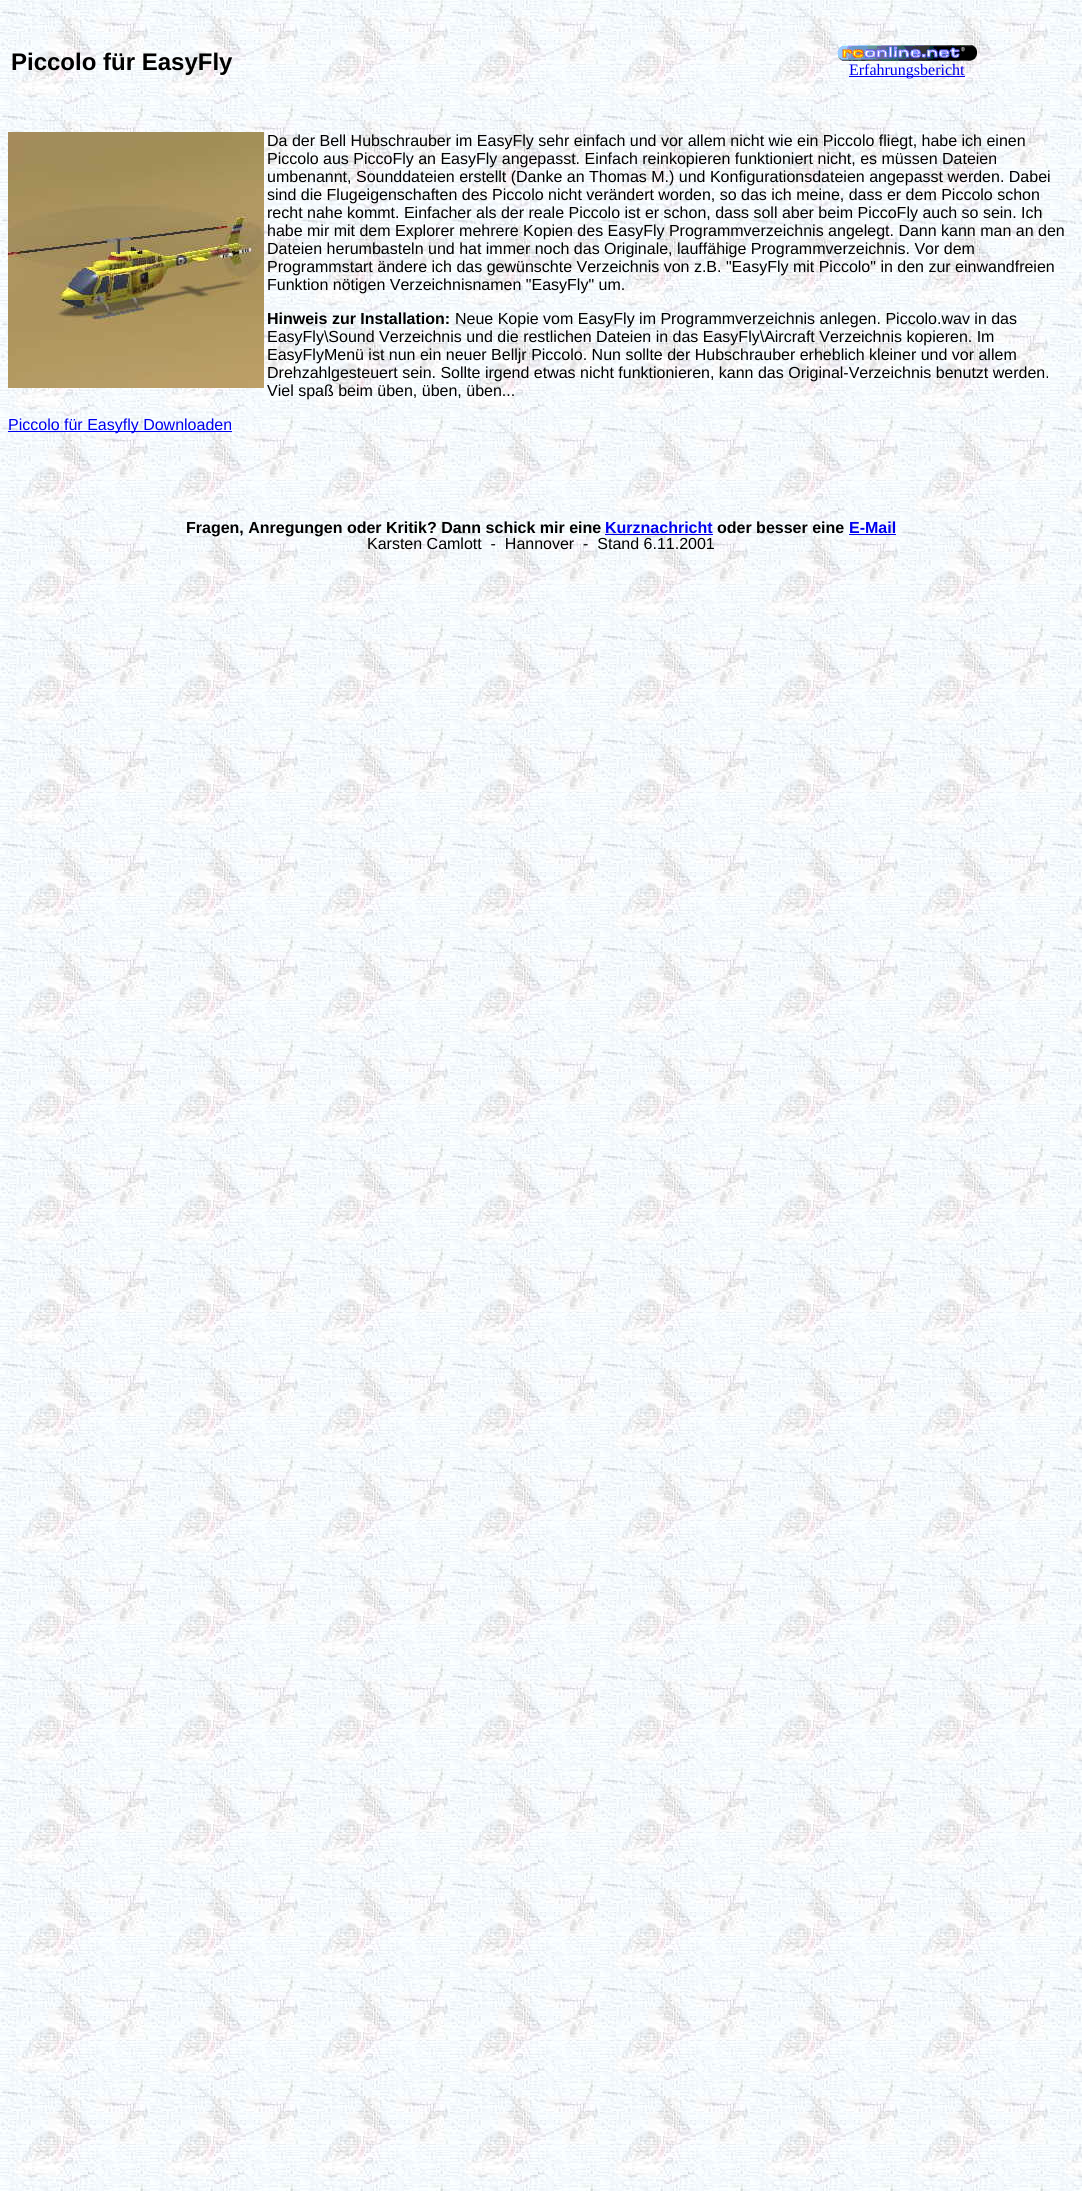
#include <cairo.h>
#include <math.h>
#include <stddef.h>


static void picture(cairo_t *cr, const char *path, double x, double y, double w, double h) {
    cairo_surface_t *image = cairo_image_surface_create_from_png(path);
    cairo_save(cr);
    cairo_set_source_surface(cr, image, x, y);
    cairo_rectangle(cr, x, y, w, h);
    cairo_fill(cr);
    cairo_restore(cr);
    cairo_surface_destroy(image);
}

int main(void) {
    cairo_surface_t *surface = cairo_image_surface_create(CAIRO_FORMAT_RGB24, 1082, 2191);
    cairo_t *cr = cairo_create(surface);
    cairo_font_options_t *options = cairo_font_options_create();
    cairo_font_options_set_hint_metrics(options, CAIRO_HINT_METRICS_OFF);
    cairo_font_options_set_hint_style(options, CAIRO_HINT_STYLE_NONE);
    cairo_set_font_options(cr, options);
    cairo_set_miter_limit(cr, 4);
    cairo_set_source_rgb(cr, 1, 1, 1);
    cairo_paint(cr);
    picture(cr, "img1.png", 0, 0, 1082, 2191);
    cairo_select_font_face(cr, "Liberation Sans", CAIRO_FONT_SLANT_NORMAL, CAIRO_FONT_WEIGHT_BOLD);
    cairo_set_font_size(cr, 24);
    cairo_set_source_rgb(cr, 0, 0, 0);
    cairo_move_to(cr, 11, 70);
    cairo_show_text(cr, "Piccolo für EasyFly");
    picture(cr, "img2.png", 837, 45, 140, 16);
    cairo_set_source_rgb(cr, 0, 0, 0.933);
    cairo_rectangle(cr, 849, 76, 116, 1);
    cairo_fill(cr);
    cairo_select_font_face(cr, "Liberation Serif", CAIRO_FONT_SLANT_NORMAL, CAIRO_FONT_WEIGHT_NORMAL);
    cairo_set_font_size(cr, 16);
    cairo_move_to(cr, 849, 75);
    cairo_show_text(cr, "Erfahrungsbericht");
    picture(cr, "img3.png", 8, 132, 256, 256);
    cairo_select_font_face(cr, "Liberation Sans", CAIRO_FONT_SLANT_NORMAL, CAIRO_FONT_WEIGHT_NORMAL);
    cairo_set_source_rgb(cr, 0, 0, 0);
    cairo_move_to(cr, 267, 146);
    cairo_show_text(cr, "Da der Bell Hubschrauber im EasyFly sehr einfach und vor allem nicht wie ein Piccolo fliegt, habe ich einen");
    cairo_move_to(cr, 267, 164);
    cairo_show_text(cr, "Piccolo aus PiccoFly an EasyFly angepasst. Einfach reinkopieren funktioniert nicht, es müssen Dateien");
    cairo_move_to(cr, 267, 182);
    cairo_show_text(cr, "umbenannt, Sounddateien erstellt (Danke an Thomas M.) und Konfigurationsdateien angepasst werden. Dabei");
    cairo_move_to(cr, 267, 200);
    cairo_show_text(cr, "sind die Flugeigenschaften des Piccolo nicht verändert worden, so das ich meine, dass er dem Piccolo schon");
    cairo_move_to(cr, 267, 218);
    cairo_show_text(cr, "recht nahe kommt. Einfacher als der reale Piccolo ist er schon, dass soll aber beim PiccoFly auch so sein. Ich");
    cairo_move_to(cr, 267, 236);
    cairo_show_text(cr, "habe mir mit dem Explorer mehrere Kopien des EasyFly Programmverzeichnis angelegt. Dann kann man an den");
    cairo_move_to(cr, 267, 254);
    cairo_show_text(cr, "Dateien herumbasteln und hat immer noch das Originale, lauffähige Programmverzeichnis. Vor dem");
    cairo_move_to(cr, 267, 272);
    cairo_show_text(cr, "Programmstart ändere ich das gewünschte Verzeichnis von z.B. \"EasyFly mit Piccolo\" in den zur einwandfreien");
    cairo_move_to(cr, 267, 290);
    cairo_show_text(cr, "Funktion nötigen Verzeichnisnamen \"EasyFly\" um.");
    cairo_select_font_face(cr, "Liberation Sans", CAIRO_FONT_SLANT_NORMAL, CAIRO_FONT_WEIGHT_BOLD);
    cairo_move_to(cr, 267, 324);
    cairo_show_text(cr, "Hinweis zur Installation:");
    cairo_select_font_face(cr, "Liberation Sans", CAIRO_FONT_SLANT_NORMAL, CAIRO_FONT_WEIGHT_NORMAL);
    cairo_move_to(cr, 455, 324);
    cairo_show_text(cr, "Neue Kopie vom EasyFly im Programmverzeichnis anlegen. Piccolo.wav in das");
    cairo_move_to(cr, 267, 342);
    cairo_show_text(cr, "EasyFly\\Sound Verzeichnis und die restlichen Dateien in das EasyFly\\Aircraft Verzeichnis kopieren. Im");
    cairo_move_to(cr, 267, 360);
    cairo_show_text(cr, "EasyFlyMenü ist nun ein neuer Belljr Piccolo. Nun sollte der Hubschrauber erheblich kleiner und vor allem");
    cairo_move_to(cr, 267, 378);
    cairo_show_text(cr, "Drehzahlgesteuert sein. Sollte irgend etwas nicht funktionieren, kann das Original-Verzeichnis benutzt werden.");
    cairo_move_to(cr, 267, 396);
    cairo_show_text(cr, "Viel spaß beim üben, üben, üben...");
    cairo_set_source_rgb(cr, 0, 0, 0.933);
    cairo_rectangle(cr, 8, 431, 224, 1);
    cairo_fill(cr);
    cairo_move_to(cr, 8, 430);
    cairo_show_text(cr, "Piccolo für Easyfly Downloaden");
    cairo_select_font_face(cr, "Liberation Sans", CAIRO_FONT_SLANT_NORMAL, CAIRO_FONT_WEIGHT_BOLD);
    cairo_set_source_rgb(cr, 0, 0, 0);
    cairo_move_to(cr, 186, 533);
    cairo_show_text(cr, "Fragen, Anregungen oder Kritik? Dann schick mir eine");
    cairo_set_source_rgb(cr, 0, 0, 0.933);
    cairo_move_to(cr, 605, 533);
    cairo_show_text(cr, "Kurznachricht");
    cairo_rectangle(cr, 605, 534, 108, 1);
    cairo_fill(cr);
    cairo_set_source_rgb(cr, 0, 0, 0);
    cairo_move_to(cr, 717, 533);
    cairo_show_text(cr, "oder besser eine");
    cairo_set_source_rgb(cr, 0, 0, 0.933);
    cairo_move_to(cr, 849, 533);
    cairo_show_text(cr, "E-Mail");
    cairo_rectangle(cr, 849, 534, 47, 1);
    cairo_fill(cr);
    cairo_select_font_face(cr, "Liberation Sans", CAIRO_FONT_SLANT_NORMAL, CAIRO_FONT_WEIGHT_NORMAL);
    cairo_set_source_rgb(cr, 0, 0, 0);
    cairo_move_to(cr, 367, 549);
    cairo_show_text(cr, "Karsten Camlott  -  Hannover  -  Stand 6.11.2001");
    cairo_surface_write_to_png(surface, "page.png");
    cairo_font_options_destroy(options);
    cairo_destroy(cr);
    cairo_surface_destroy(surface);
    return 0;
}
